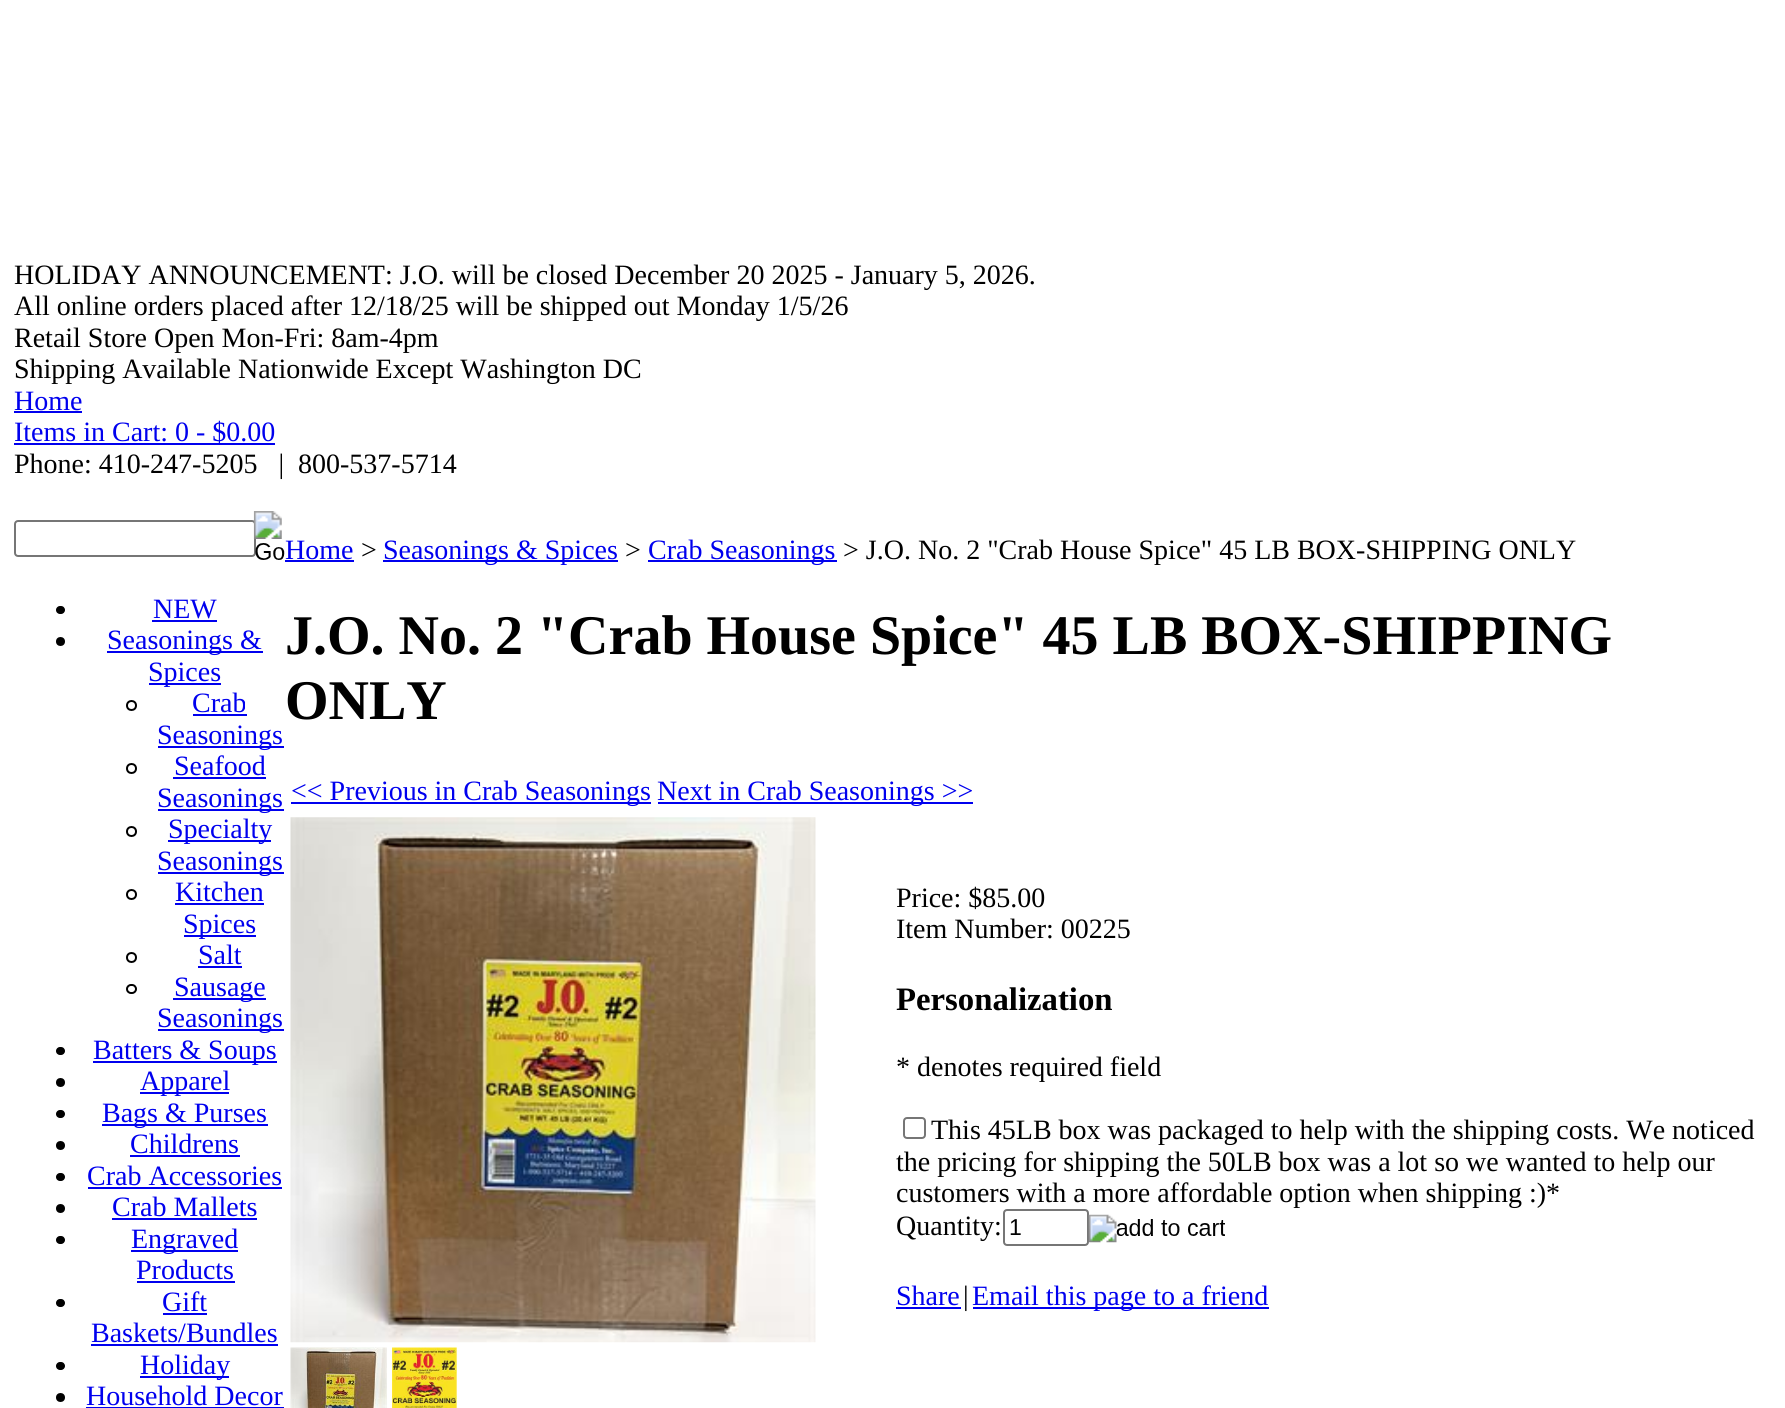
#include <cairo.h>
#include <math.h>
#include <stddef.h>


static void round_rect(cairo_t *cr, double x, double y, double w, double h, double r) {
    cairo_new_sub_path(cr);
    cairo_arc(cr, x + w - r, y + h - r, r, 0, M_PI / 2);
    cairo_arc(cr, x + r, y + h - r, r, M_PI / 2, M_PI);
    cairo_arc(cr, x + r, y + r, r, M_PI, 1.5 * M_PI);
    cairo_arc(cr, x + w - r, y + r, r, 1.5 * M_PI, 2 * M_PI);
    cairo_close_path(cr);
}

static void picture(cairo_t *cr, const char *path, double x, double y, double w, double h) {
    cairo_surface_t *image = cairo_image_surface_create_from_png(path);
    cairo_save(cr);
    cairo_set_source_surface(cr, image, x, y);
    cairo_rectangle(cr, x, y, w, h);
    cairo_fill(cr);
    cairo_restore(cr);
    cairo_surface_destroy(image);
}

int main(void) {
    cairo_surface_t *surface = cairo_image_surface_create(CAIRO_FORMAT_RGB24, 1785, 1408);
    cairo_t *cr = cairo_create(surface);
    cairo_font_options_t *options = cairo_font_options_create();
    cairo_font_options_set_hint_metrics(options, CAIRO_HINT_METRICS_OFF);
    cairo_font_options_set_hint_style(options, CAIRO_HINT_STYLE_NONE);
    cairo_set_font_options(cr, options);
    cairo_set_miter_limit(cr, 4);
    cairo_set_source_rgb(cr, 1, 1, 1);
    cairo_paint(cr);
    cairo_select_font_face(cr, "Liberation Serif", CAIRO_FONT_SLANT_NORMAL, CAIRO_FONT_WEIGHT_NORMAL);
    cairo_set_font_size(cr, 28);
    cairo_set_source_rgb(cr, 0, 0, 0);
    cairo_move_to(cr, 14, 284);
    cairo_show_text(cr, "HOLIDAY ANNOUNCEMENT: J.O. will be closed December 20 2025 - January 5, 2026.");
    cairo_move_to(cr, 14, 315);
    cairo_show_text(cr, "All online orders placed after 12/18/25 will be shipped out Monday 1/5/26");
    cairo_move_to(cr, 14, 347);
    cairo_show_text(cr, "Retail Store Open Mon-Fri: 8am-4pm");
    cairo_move_to(cr, 14, 378);
    cairo_show_text(cr, "Shipping Available Nationwide Except Washington DC");
    cairo_set_source_rgb(cr, 0, 0, 0.933);
    cairo_move_to(cr, 14, 410);
    cairo_show_text(cr, "Home");
    cairo_rectangle(cr, 14, 411, 68, 2);
    cairo_fill(cr);
    cairo_rectangle(cr, 14, 443, 261, 2);
    cairo_fill(cr);
    cairo_move_to(cr, 14, 441);
    cairo_show_text(cr, "Items in Cart: 0 - $0.00");
    cairo_set_source_rgb(cr, 0, 0, 0);
    cairo_move_to(cr, 14, 473);
    cairo_show_text(cr, "Phone: 410-247-5205   |  800-537-5714");
    round_rect(cr, 15, 521, 240, 35, 3);
    cairo_set_source_rgb(cr, 0.463, 0.463, 0.463);
    cairo_stroke(cr);
    picture(cr, "img1.png", 253, 511, 32, 49);
    cairo_set_source_rgb(cr, 0, 0, 0);
    round_rect(cr, 56, 606, 9, 8, 4);
    cairo_fill(cr);
    cairo_set_source_rgb(cr, 0, 0, 0.933);
    cairo_move_to(cr, 153, 618);
    cairo_show_text(cr, "NEW");
    cairo_rectangle(cr, 152, 620, 65, 2);
    cairo_fill(cr);
    cairo_set_source_rgb(cr, 0, 0, 0);
    cairo_arc(cr, 60.5, 641.5, 4.5, 0, 2 * M_PI);
    cairo_fill(cr);
    cairo_set_source_rgb(cr, 0, 0, 0.933);
    cairo_rectangle(cr, 107, 651, 156, 2);
    cairo_fill(cr);
    cairo_move_to(cr, 107, 649);
    cairo_show_text(cr, "Seasonings &");
    cairo_rectangle(cr, 149, 683, 72, 2);
    cairo_fill(cr);
    cairo_move_to(cr, 148, 681);
    cairo_show_text(cr, "Spices");
    cairo_new_path(cr);
    cairo_arc(cr, 131.5, 705.5, 4.5, 0, 2 * M_PI);
    cairo_set_source_rgb(cr, 0, 0, 0);
    cairo_stroke(cr);
    cairo_set_source_rgb(cr, 0, 0, 0.933);
    cairo_move_to(cr, 192, 712);
    cairo_show_text(cr, "Crab");
    cairo_rectangle(cr, 193, 714, 54, 2);
    cairo_fill(cr);
    cairo_rectangle(cr, 158, 746, 126, 2);
    cairo_fill(cr);
    cairo_move_to(cr, 157, 744);
    cairo_show_text(cr, "Seasonings");
    cairo_new_path(cr);
    cairo_arc(cr, 131.5, 768.5, 4.5, 0, 2 * M_PI);
    cairo_set_source_rgb(cr, 0, 0, 0);
    cairo_stroke(cr);
    cairo_set_source_rgb(cr, 0, 0, 0.933);
    cairo_move_to(cr, 174, 775);
    cairo_show_text(cr, "Seafood");
    cairo_rectangle(cr, 173, 777, 93, 2);
    cairo_fill(cr);
    cairo_rectangle(cr, 158, 809, 126, 2);
    cairo_fill(cr);
    cairo_move_to(cr, 157, 807);
    cairo_show_text(cr, "Seasonings");
    cairo_new_path(cr);
    cairo_arc(cr, 131.5, 831.5, 4.5, 0, 2 * M_PI);
    cairo_set_source_rgb(cr, 0, 0, 0);
    cairo_stroke(cr);
    cairo_set_source_rgb(cr, 0, 0, 0.933);
    cairo_rectangle(cr, 168, 840, 103, 2);
    cairo_fill(cr);
    cairo_move_to(cr, 168, 838);
    cairo_show_text(cr, "Specialty");
    cairo_rectangle(cr, 158, 872, 126, 2);
    cairo_fill(cr);
    cairo_move_to(cr, 157, 870);
    cairo_show_text(cr, "Seasonings");
    cairo_new_path(cr);
    cairo_arc(cr, 131.5, 894.5, 4.5, 0, 2 * M_PI);
    cairo_set_source_rgb(cr, 0, 0, 0);
    cairo_stroke(cr);
    cairo_set_source_rgb(cr, 0, 0, 0.933);
    cairo_move_to(cr, 175, 901);
    cairo_show_text(cr, "Kitchen");
    cairo_rectangle(cr, 175, 903, 89, 2);
    cairo_fill(cr);
    cairo_rectangle(cr, 184, 935, 72, 2);
    cairo_fill(cr);
    cairo_move_to(cr, 183, 933);
    cairo_show_text(cr, "Spices");
    cairo_new_path(cr);
    cairo_arc(cr, 131.5, 957.5, 4.5, 0, 2 * M_PI);
    cairo_set_source_rgb(cr, 0, 0, 0);
    cairo_stroke(cr);
    cairo_set_source_rgb(cr, 0, 0, 0.933);
    cairo_move_to(cr, 198, 964);
    cairo_show_text(cr, "Salt");
    cairo_rectangle(cr, 198, 966, 44, 2);
    cairo_fill(cr);
    round_rect(cr, 127, 985, 9, 8, 4);
    cairo_set_source_rgb(cr, 0, 0, 0);
    cairo_stroke(cr);
    cairo_set_source_rgb(cr, 0, 0, 0.933);
    cairo_rectangle(cr, 173, 998, 93, 2);
    cairo_fill(cr);
    cairo_move_to(cr, 174, 996);
    cairo_show_text(cr, "Sausage");
    cairo_rectangle(cr, 158, 1029, 126, 2);
    cairo_fill(cr);
    cairo_move_to(cr, 157, 1027);
    cairo_show_text(cr, "Seasonings");
    cairo_set_source_rgb(cr, 0, 0, 0);
    round_rect(cr, 56, 1047, 9, 8, 4);
    cairo_fill(cr);
    cairo_set_source_rgb(cr, 0, 0, 0.933);
    cairo_rectangle(cr, 93, 1061, 184, 2);
    cairo_fill(cr);
    cairo_move_to(cr, 93, 1059);
    cairo_show_text(cr, "Batters & Soups");
    cairo_set_source_rgb(cr, 0, 0, 0);
    cairo_new_path(cr);
    cairo_arc(cr, 60.5, 1082.5, 4.5, 0, 2 * M_PI);
    cairo_fill(cr);
    cairo_set_source_rgb(cr, 0, 0, 0.933);
    cairo_rectangle(cr, 140, 1092, 89, 2);
    cairo_fill(cr);
    cairo_move_to(cr, 140, 1090);
    cairo_show_text(cr, "Apparel");
    cairo_set_source_rgb(cr, 0, 0, 0);
    round_rect(cr, 56, 1110, 9, 8, 4);
    cairo_fill(cr);
    cairo_set_source_rgb(cr, 0, 0, 0.933);
    cairo_rectangle(cr, 102, 1124, 166, 2);
    cairo_fill(cr);
    cairo_move_to(cr, 102, 1122);
    cairo_show_text(cr, "Bags & Purses");
    cairo_set_source_rgb(cr, 0, 0, 0);
    cairo_new_path(cr);
    cairo_arc(cr, 60.5, 1145.5, 4.5, 0, 2 * M_PI);
    cairo_fill(cr);
    cairo_set_source_rgb(cr, 0, 0, 0.933);
    cairo_move_to(cr, 130, 1153);
    cairo_show_text(cr, "Childrens");
    cairo_rectangle(cr, 130, 1155, 110, 2);
    cairo_fill(cr);
    cairo_set_source_rgb(cr, 0, 0, 0);
    round_rect(cr, 56, 1173, 9, 8, 4);
    cairo_fill(cr);
    cairo_set_source_rgb(cr, 0, 0, 0.933);
    cairo_move_to(cr, 87, 1185);
    cairo_show_text(cr, "Crab Accessories");
    cairo_rectangle(cr, 88, 1187, 194, 2);
    cairo_fill(cr);
    cairo_set_source_rgb(cr, 0, 0, 0);
    cairo_arc(cr, 60.5, 1208.5, 4.5, 0, 2 * M_PI);
    cairo_fill(cr);
    cairo_set_source_rgb(cr, 0, 0, 0.933);
    cairo_move_to(cr, 112, 1216);
    cairo_show_text(cr, "Crab Mallets");
    cairo_rectangle(cr, 112, 1218, 145, 2);
    cairo_fill(cr);
    cairo_set_source_rgb(cr, 0, 0, 0);
    round_rect(cr, 56, 1236, 9, 8, 4);
    cairo_fill(cr);
    cairo_set_source_rgb(cr, 0, 0, 0.933);
    cairo_rectangle(cr, 131, 1250, 107, 2);
    cairo_fill(cr);
    cairo_move_to(cr, 131, 1248);
    cairo_show_text(cr, "Engraved");
    cairo_move_to(cr, 136, 1279);
    cairo_show_text(cr, "Products");
    cairo_rectangle(cr, 137, 1281, 98, 2);
    cairo_fill(cr);
    cairo_set_source_rgb(cr, 0, 0, 0);
    round_rect(cr, 56, 1299, 9, 8, 4);
    cairo_fill(cr);
    cairo_set_source_rgb(cr, 0, 0, 0.933);
    cairo_move_to(cr, 162, 1311);
    cairo_show_text(cr, "Gift");
    cairo_rectangle(cr, 163, 1313, 44, 2);
    cairo_fill(cr);
    cairo_move_to(cr, 91, 1342);
    cairo_show_text(cr, "Baskets/Bundles");
    cairo_rectangle(cr, 91, 1344, 187, 2);
    cairo_fill(cr);
    cairo_set_source_rgb(cr, 0, 0, 0);
    round_rect(cr, 56, 1362, 9, 8, 4);
    cairo_fill(cr);
    cairo_set_source_rgb(cr, 0, 0, 0.933);
    cairo_rectangle(cr, 140, 1376, 89, 2);
    cairo_fill(cr);
    cairo_move_to(cr, 140, 1374);
    cairo_show_text(cr, "Holiday");
    cairo_set_source_rgb(cr, 0, 0, 0);
    cairo_new_path(cr);
    cairo_arc(cr, 60.5, 1397.5, 4.5, 0, 2 * M_PI);
    cairo_fill(cr);
    cairo_set_source_rgb(cr, 0, 0, 0.933);
    cairo_move_to(cr, 86, 1405);
    cairo_show_text(cr, "Household Decor");
    cairo_rectangle(cr, 86, 1407, 198, 1);
    cairo_fill(cr);
    cairo_move_to(cr, 285, 559);
    cairo_show_text(cr, "Home");
    cairo_rectangle(cr, 285, 560, 69, 2);
    cairo_fill(cr);
    cairo_set_source_rgb(cr, 0, 0, 0);
    cairo_move_to(cr, 361, 559);
    cairo_show_text(cr, ">");
    cairo_set_source_rgb(cr, 0, 0, 0.933);
    cairo_rectangle(cr, 383, 560, 235, 2);
    cairo_fill(cr);
    cairo_move_to(cr, 383, 559);
    cairo_show_text(cr, "Seasonings & Spices");
    cairo_set_source_rgb(cr, 0, 0, 0);
    cairo_move_to(cr, 625, 559);
    cairo_show_text(cr, ">");
    cairo_set_source_rgb(cr, 0, 0, 0.933);
    cairo_rectangle(cr, 648, 560, 189, 2);
    cairo_fill(cr);
    cairo_move_to(cr, 648, 559);
    cairo_show_text(cr, "Crab Seasonings");
    cairo_set_source_rgb(cr, 0, 0, 0);
    cairo_move_to(cr, 843, 559);
    cairo_show_text(cr, "> J.O. No. 2 \"Crab House Spice\" 45 LB BOX-SHIPPING ONLY");
    cairo_select_font_face(cr, "Liberation Serif", CAIRO_FONT_SLANT_NORMAL, CAIRO_FONT_WEIGHT_BOLD);
    cairo_set_font_size(cr, 56);
    cairo_move_to(cr, 285, 654);
    cairo_show_text(cr, "J.O. No. 2 \"Crab House Spice\" 45 LB BOX-SHIPPING");
    cairo_move_to(cr, 285, 719);
    cairo_show_text(cr, "ONLY");
    cairo_set_source_rgb(cr, 0, 0, 0.933);
    cairo_rectangle(cr, 291, 802, 360, 2);
    cairo_fill(cr);
    cairo_select_font_face(cr, "Liberation Serif", CAIRO_FONT_SLANT_NORMAL, CAIRO_FONT_WEIGHT_NORMAL);
    cairo_set_font_size(cr, 28);
    cairo_move_to(cr, 291, 800);
    cairo_show_text(cr, "<< Previous in Crab Seasonings");
    cairo_rectangle(cr, 658, 802, 315, 2);
    cairo_fill(cr);
    cairo_move_to(cr, 657, 800);
    cairo_show_text(cr, "Next in Crab Seasonings >>");
    picture(cr, "img2.png", 290, 817, 526, 526);
    picture(cr, "img3.png", 290, 1347, 97, 61);
    picture(cr, "img4.png", 392, 1347, 65, 61);
    cairo_set_source_rgb(cr, 0, 0, 0);
    cairo_move_to(cr, 896, 907);
    cairo_show_text(cr, "Price: $85.00");
    cairo_move_to(cr, 896, 938);
    cairo_show_text(cr, "Item Number: 00225");
    cairo_select_font_face(cr, "Liberation Serif", CAIRO_FONT_SLANT_NORMAL, CAIRO_FONT_WEIGHT_BOLD);
    cairo_set_font_size(cr, 32.75);
    cairo_move_to(cr, 896, 1010);
    cairo_show_text(cr, "Personalization");
    cairo_select_font_face(cr, "Liberation Serif", CAIRO_FONT_SLANT_NORMAL, CAIRO_FONT_WEIGHT_NORMAL);
    cairo_set_font_size(cr, 28);
    cairo_move_to(cr, 896, 1076);
    cairo_show_text(cr, "* denotes required field");
    round_rect(cr, 904, 1118, 21, 20, 3);
    cairo_set_source_rgb(cr, 0.463, 0.463, 0.463);
    cairo_stroke(cr);
    cairo_set_source_rgb(cr, 0, 0, 0);
    cairo_move_to(cr, 931, 1139);
    cairo_show_text(cr, "This 45LB box was packaged to help with the shipping costs. We noticed");
    cairo_move_to(cr, 896, 1171);
    cairo_show_text(cr, "the pricing for shipping the 50LB box was a lot so we wanted to help our");
    cairo_move_to(cr, 896, 1202);
    cairo_show_text(cr, "customers with a more affordable option when shipping :)*");
    cairo_move_to(cr, 896, 1235);
    cairo_show_text(cr, "Quantity:");
    round_rect(cr, 1004, 1210, 84, 35, 3);
    cairo_set_source_rgb(cr, 0.463, 0.463, 0.463);
    cairo_stroke(cr);
    cairo_select_font_face(cr, "Liberation Sans", CAIRO_FONT_SLANT_NORMAL, CAIRO_FONT_WEIGHT_NORMAL);
    cairo_set_font_size(cr, 23);
    cairo_set_source_rgb(cr, 0, 0, 0);
    cairo_move_to(cr, 1009, 1235);
    cairo_show_text(cr, "1");
    picture(cr, "img5.png", 1088, 1214, 137, 29);
    cairo_select_font_face(cr, "Liberation Serif", CAIRO_FONT_SLANT_NORMAL, CAIRO_FONT_WEIGHT_NORMAL);
    cairo_set_font_size(cr, 28);
    cairo_set_source_rgb(cr, 0, 0, 0.933);
    cairo_move_to(cr, 896, 1305);
    cairo_show_text(cr, "Share");
    cairo_rectangle(cr, 896, 1307, 65, 2);
    cairo_fill(cr);
    cairo_set_source_rgb(cr, 0, 0, 0);
    cairo_move_to(cr, 963, 1305);
    cairo_show_text(cr, "|");
    cairo_set_source_rgb(cr, 0, 0, 0.933);
    cairo_rectangle(cr, 973, 1307, 296, 2);
    cairo_fill(cr);
    cairo_move_to(cr, 972, 1305);
    cairo_show_text(cr, "Email this page to a friend");
    cairo_surface_write_to_png(surface, "page.png");
    cairo_font_options_destroy(options);
    cairo_destroy(cr);
    cairo_surface_destroy(surface);
    return 0;
}
